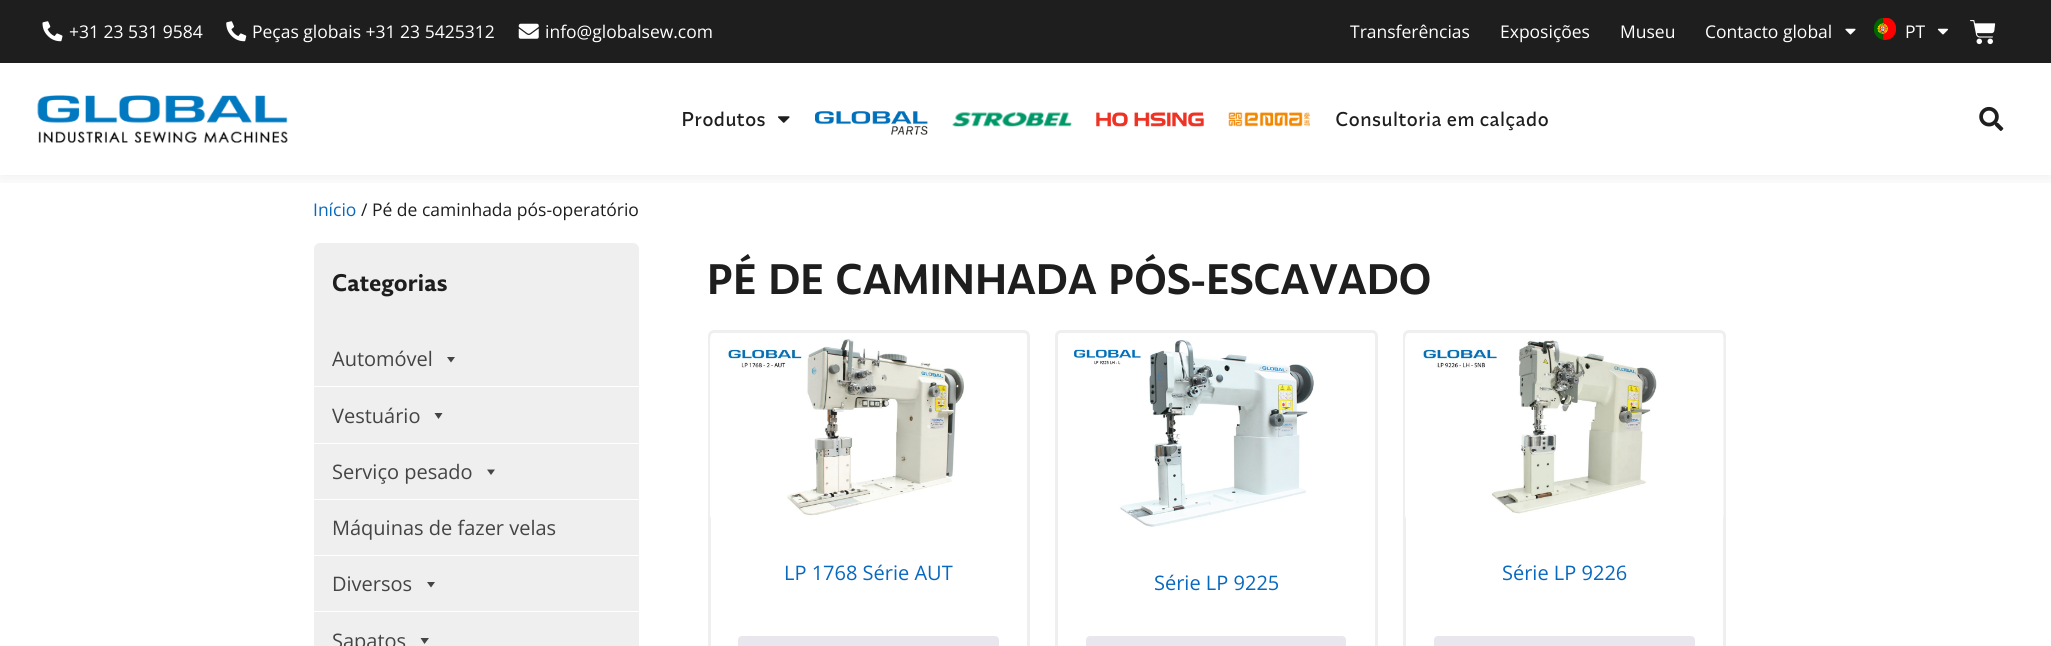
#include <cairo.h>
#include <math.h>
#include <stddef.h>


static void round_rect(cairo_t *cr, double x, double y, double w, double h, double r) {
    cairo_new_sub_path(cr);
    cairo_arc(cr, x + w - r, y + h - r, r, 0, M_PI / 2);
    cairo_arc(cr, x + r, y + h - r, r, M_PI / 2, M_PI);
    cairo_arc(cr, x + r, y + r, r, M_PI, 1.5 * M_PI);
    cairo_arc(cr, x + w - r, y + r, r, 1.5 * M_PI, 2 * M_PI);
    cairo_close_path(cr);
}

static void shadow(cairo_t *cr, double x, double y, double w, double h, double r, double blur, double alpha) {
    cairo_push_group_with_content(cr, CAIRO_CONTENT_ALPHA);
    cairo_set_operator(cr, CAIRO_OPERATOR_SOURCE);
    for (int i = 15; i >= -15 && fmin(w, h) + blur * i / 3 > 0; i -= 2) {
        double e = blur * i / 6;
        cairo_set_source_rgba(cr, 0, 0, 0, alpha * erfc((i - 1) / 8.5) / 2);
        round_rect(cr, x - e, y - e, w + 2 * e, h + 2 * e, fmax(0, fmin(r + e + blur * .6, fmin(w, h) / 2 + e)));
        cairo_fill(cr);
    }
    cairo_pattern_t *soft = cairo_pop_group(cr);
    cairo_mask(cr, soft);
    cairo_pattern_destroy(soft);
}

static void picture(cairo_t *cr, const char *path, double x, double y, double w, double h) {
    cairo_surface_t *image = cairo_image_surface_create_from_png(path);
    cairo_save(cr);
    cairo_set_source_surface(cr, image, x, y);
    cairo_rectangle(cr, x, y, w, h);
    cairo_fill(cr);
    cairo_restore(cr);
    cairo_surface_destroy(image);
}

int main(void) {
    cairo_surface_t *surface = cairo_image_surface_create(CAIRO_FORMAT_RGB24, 2051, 646);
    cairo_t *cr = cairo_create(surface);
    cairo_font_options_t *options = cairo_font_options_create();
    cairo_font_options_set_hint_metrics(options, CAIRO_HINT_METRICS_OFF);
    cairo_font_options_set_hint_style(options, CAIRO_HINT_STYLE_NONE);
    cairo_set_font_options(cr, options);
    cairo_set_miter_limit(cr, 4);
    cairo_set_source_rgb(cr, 1, 1, 1);
    cairo_paint(cr);
    cairo_save(cr);
    cairo_rectangle(cr, 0, 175, 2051, 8);
    cairo_clip(cr);
    cairo_set_source_rgb(cr, 0, 0, 0);
    shadow(cr, 0, 65, 2051, 113, 0, 9.5, 0.07);
    cairo_restore(cr);
    cairo_set_source_rgb(cr, 0.118, 0.118, 0.118);
    cairo_rectangle(cr, 0, 0, 2051, 63);
    cairo_fill(cr);
    picture(cr, "img1.png", 42, 21, 21, 21);
    cairo_select_font_face(cr, "Open Sans", CAIRO_FONT_SLANT_NORMAL, CAIRO_FONT_WEIGHT_NORMAL);
    cairo_set_font_size(cr, 17.5);
    cairo_set_source_rgb(cr, 1, 1, 1);
    cairo_move_to(cr, 69, 38);
    cairo_show_text(cr, "+31 23 531 9584");
    picture(cr, "img2.png", 226, 21, 21, 21);
    cairo_move_to(cr, 252, 38);
    cairo_show_text(cr, "Peças globais +31 23 5425312");
    picture(cr, "img3.png", 518, 23, 21, 16);
    cairo_move_to(cr, 545, 38);
    cairo_show_text(cr, "info@globalsew.com");
    cairo_move_to(cr, 1350, 38);
    cairo_show_text(cr, "Transferências");
    cairo_move_to(cr, 1500, 38);
    cairo_show_text(cr, "Exposições");
    cairo_move_to(cr, 1620, 38);
    cairo_show_text(cr, "Museu");
    cairo_move_to(cr, 1705, 38);
    cairo_show_text(cr, "Contacto global");
    picture(cr, "img4.png", 1845, 28, 11, 7);
    picture(cr, "img5.png", 1874, 18, 22, 22);
    cairo_move_to(cr, 1905, 38);
    cairo_show_text(cr, "PT");
    picture(cr, "img6.png", 1937, 28, 11, 7);
    picture(cr, "img7.png", 1970, 20, 26, 25);
    picture(cr, "img8.png", 37, 95, 251, 48);
    cairo_select_font_face(cr, "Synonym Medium", CAIRO_FONT_SLANT_NORMAL, CAIRO_FONT_WEIGHT_NORMAL);
    cairo_set_font_size(cr, 20);
    cairo_set_source_rgb(cr, 0.118, 0.118, 0.118);
    cairo_move_to(cr, 681, 126);
    cairo_show_text(cr, "Produtos");
    picture(cr, "img9.png", 778, 116, 12, 7);
    picture(cr, "img10.png", 815, 111, 113, 24);
    picture(cr, "img11.png", 952, 112, 120, 15);
    picture(cr, "img12.png", 1096, 112, 108, 15);
    picture(cr, "img13.png", 1228, 112, 82, 15);
    cairo_move_to(cr, 1335, 126);
    cairo_show_text(cr, "Consultoria em calçado");
    picture(cr, "img14.png", 1979, 106, 25, 25);
    cairo_select_font_face(cr, "Open Sans", CAIRO_FONT_SLANT_NORMAL, CAIRO_FONT_WEIGHT_NORMAL);
    cairo_set_font_size(cr, 17.5);
    cairo_set_source_rgb(cr, 0.031, 0.408, 0.753);
    cairo_move_to(cr, 313, 216);
    cairo_show_text(cr, "Início");
    cairo_set_source_rgb(cr, 0.118, 0.118, 0.118);
    cairo_move_to(cr, 361, 216);
    cairo_show_text(cr, "/ Pé de caminhada pós-operatório");
    cairo_set_source_rgb(cr, 0.937, 0.937, 0.937);
    round_rect(cr, 314, 243, 325, 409, 6);
    cairo_fill(cr);
    cairo_select_font_face(cr, "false", CAIRO_FONT_SLANT_NORMAL, CAIRO_FONT_WEIGHT_BOLD);
    cairo_set_font_size(cr, 22.5);
    cairo_set_source_rgb(cr, 0.118, 0.118, 0.118);
    cairo_move_to(cr, 332, 291);
    cairo_show_text(cr, "Categorias");
    cairo_set_source_rgb(cr, 1, 1, 1);
    cairo_rectangle(cr, 314, 386, 325, 1);
    cairo_fill(cr);
    cairo_select_font_face(cr, "Open Sans", CAIRO_FONT_SLANT_NORMAL, CAIRO_FONT_WEIGHT_NORMAL);
    cairo_set_font_size(cr, 20);
    cairo_set_source_rgb(cr, 0.267, 0.267, 0.267);
    cairo_move_to(cr, 332, 366);
    cairo_show_text(cr, "Automóvel");
    cairo_new_path(cr);
    cairo_move_to(cr, 455, 357);
    cairo_line_to(cr, 451, 362.5);
    cairo_line_to(cr, 447, 357);
    cairo_close_path(cr);
    cairo_fill(cr);
    cairo_set_source_rgb(cr, 1, 1, 1);
    cairo_rectangle(cr, 314, 443, 325, 1);
    cairo_fill(cr);
    cairo_set_source_rgb(cr, 0.267, 0.267, 0.267);
    cairo_move_to(cr, 332, 423);
    cairo_show_text(cr, "Vestuário");
    cairo_new_path(cr);
    cairo_move_to(cr, 442.5, 413);
    cairo_line_to(cr, 438.5, 419);
    cairo_line_to(cr, 434.5, 413);
    cairo_close_path(cr);
    cairo_fill(cr);
    cairo_set_source_rgb(cr, 1, 1, 1);
    cairo_rectangle(cr, 314, 499, 325, 1);
    cairo_fill(cr);
    cairo_set_source_rgb(cr, 0.267, 0.267, 0.267);
    cairo_move_to(cr, 332, 479);
    cairo_show_text(cr, "Serviço pesado");
    cairo_new_path(cr);
    cairo_move_to(cr, 495, 469.5);
    cairo_line_to(cr, 491, 475);
    cairo_line_to(cr, 487, 469.5);
    cairo_close_path(cr);
    cairo_fill(cr);
    cairo_set_source_rgb(cr, 1, 1, 1);
    cairo_rectangle(cr, 314, 555, 325, 1);
    cairo_fill(cr);
    cairo_set_source_rgb(cr, 0.267, 0.267, 0.267);
    cairo_move_to(cr, 332, 535);
    cairo_show_text(cr, "Máquinas de fazer velas");
    cairo_set_source_rgb(cr, 1, 1, 1);
    cairo_rectangle(cr, 314, 611, 325, 1);
    cairo_fill(cr);
    cairo_set_source_rgb(cr, 0.267, 0.267, 0.267);
    cairo_move_to(cr, 332, 591);
    cairo_show_text(cr, "Diversos");
    cairo_new_path(cr);
    cairo_move_to(cr, 435, 582);
    cairo_line_to(cr, 431, 587.5);
    cairo_line_to(cr, 427, 582);
    cairo_close_path(cr);
    cairo_fill(cr);
    cairo_move_to(cr, 332, 648);
    cairo_show_text(cr, "Sapatos");
    cairo_new_path(cr);
    cairo_move_to(cr, 429, 638);
    cairo_line_to(cr, 424.5, 644);
    cairo_line_to(cr, 420.5, 638);
    cairo_close_path(cr);
    cairo_fill(cr);
    cairo_select_font_face(cr, "false", CAIRO_FONT_SLANT_NORMAL, CAIRO_FONT_WEIGHT_BOLD);
    cairo_set_font_size(cr, 40);
    cairo_set_source_rgb(cr, 0.118, 0.118, 0.118);
    cairo_move_to(cr, 707, 294);
    cairo_show_text(cr, "PÉ DE CAMINHADA PÓS-ESCAVADO");
    round_rect(cr, 709.5, 331.5, 319, 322, 4.5);
    cairo_set_source_rgb(cr, 0.937, 0.937, 0.937);
    cairo_set_line_width(cr, 3);
    cairo_stroke(cr);
    picture(cr, "img15.png", 710, 334, 254, 184);
    cairo_select_font_face(cr, "Open Sans", CAIRO_FONT_SLANT_NORMAL, CAIRO_FONT_WEIGHT_NORMAL);
    cairo_set_font_size(cr, 20);
    cairo_set_source_rgb(cr, 0.031, 0.408, 0.753);
    cairo_move_to(cr, 784, 580);
    cairo_show_text(cr, "LP 1768 Série AUT");
    cairo_set_source_rgb(cr, 0.914, 0.902, 0.929);
    round_rect(cr, 738, 636, 261, 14, 4);
    cairo_fill(cr);
    round_rect(cr, 1056.5, 331.5, 320, 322, 4.5);
    cairo_set_source_rgb(cr, 0.937, 0.937, 0.937);
    cairo_stroke(cr);
    picture(cr, "img16.png", 1074, 340, 240, 187);
    cairo_set_source_rgb(cr, 0.031, 0.408, 0.753);
    cairo_move_to(cr, 1154, 590);
    cairo_show_text(cr, "Série LP 9225");
    cairo_set_source_rgb(cr, 0.914, 0.902, 0.929);
    round_rect(cr, 1086, 636, 260, 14, 4);
    cairo_fill(cr);
    round_rect(cr, 1404.5, 331.5, 320, 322, 4.5);
    cairo_set_source_rgb(cr, 0.937, 0.937, 0.937);
    cairo_stroke(cr);
    picture(cr, "img17.png", 1405, 334, 319, 184);
    cairo_set_source_rgb(cr, 0.031, 0.408, 0.753);
    cairo_move_to(cr, 1502, 580);
    cairo_show_text(cr, "Série LP 9226");
    cairo_set_source_rgb(cr, 0.914, 0.902, 0.929);
    round_rect(cr, 1434, 636, 261, 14, 4);
    cairo_fill(cr);
    cairo_surface_write_to_png(surface, "page.png");
    cairo_font_options_destroy(options);
    cairo_destroy(cr);
    cairo_surface_destroy(surface);
    return 0;
}
